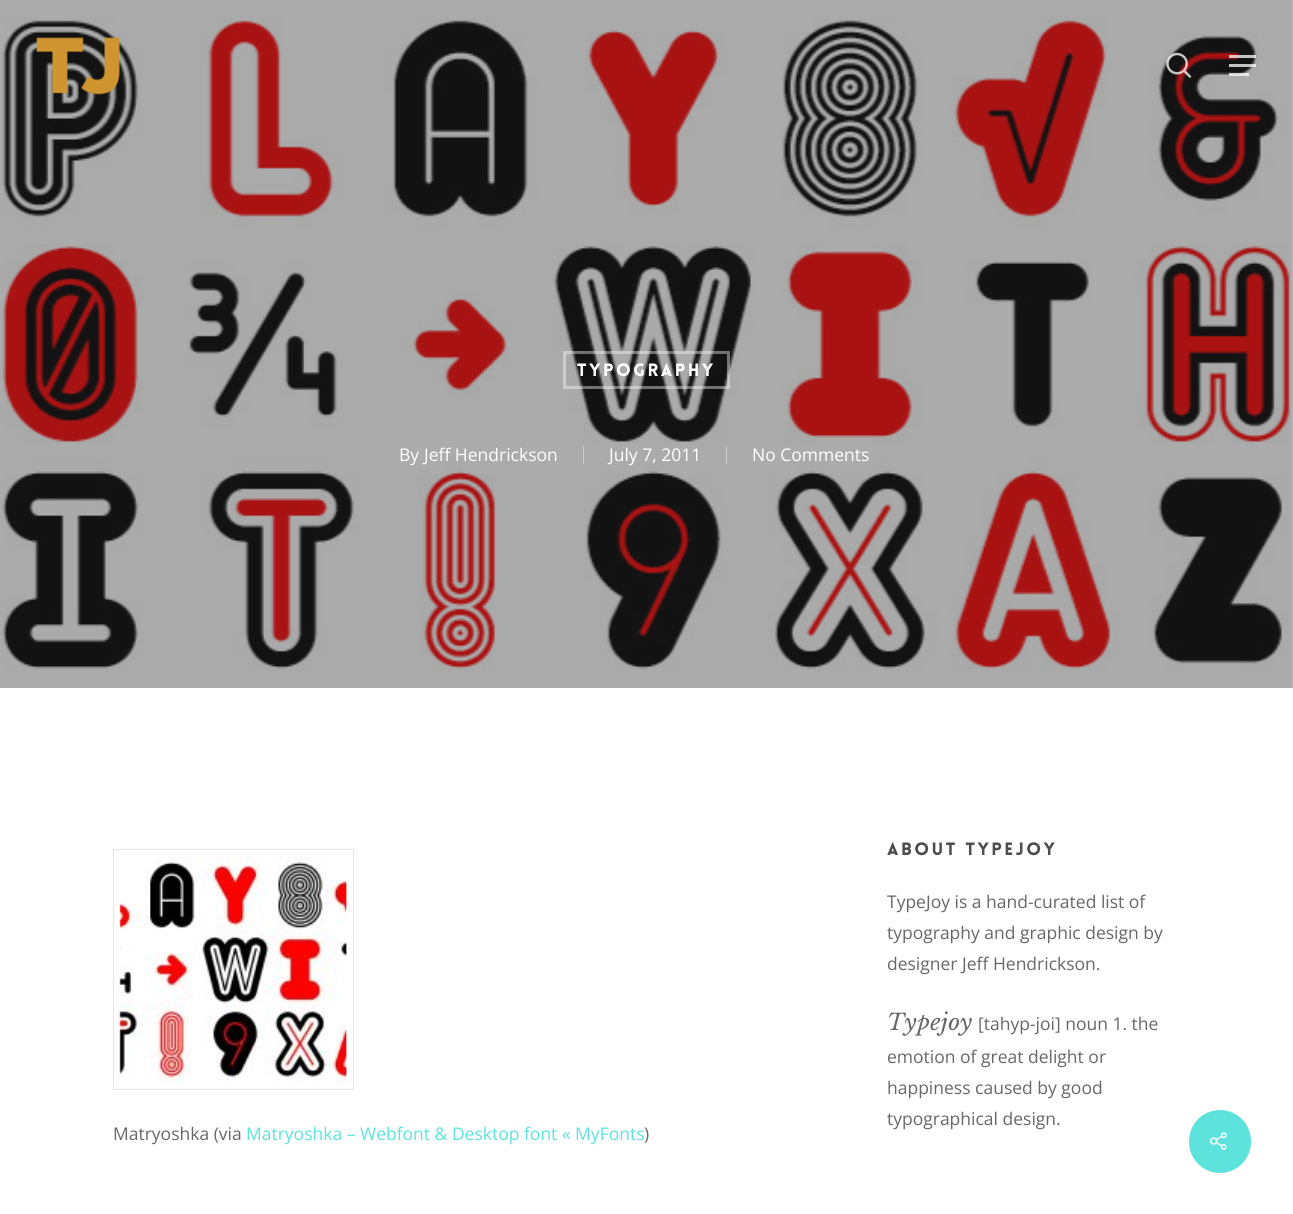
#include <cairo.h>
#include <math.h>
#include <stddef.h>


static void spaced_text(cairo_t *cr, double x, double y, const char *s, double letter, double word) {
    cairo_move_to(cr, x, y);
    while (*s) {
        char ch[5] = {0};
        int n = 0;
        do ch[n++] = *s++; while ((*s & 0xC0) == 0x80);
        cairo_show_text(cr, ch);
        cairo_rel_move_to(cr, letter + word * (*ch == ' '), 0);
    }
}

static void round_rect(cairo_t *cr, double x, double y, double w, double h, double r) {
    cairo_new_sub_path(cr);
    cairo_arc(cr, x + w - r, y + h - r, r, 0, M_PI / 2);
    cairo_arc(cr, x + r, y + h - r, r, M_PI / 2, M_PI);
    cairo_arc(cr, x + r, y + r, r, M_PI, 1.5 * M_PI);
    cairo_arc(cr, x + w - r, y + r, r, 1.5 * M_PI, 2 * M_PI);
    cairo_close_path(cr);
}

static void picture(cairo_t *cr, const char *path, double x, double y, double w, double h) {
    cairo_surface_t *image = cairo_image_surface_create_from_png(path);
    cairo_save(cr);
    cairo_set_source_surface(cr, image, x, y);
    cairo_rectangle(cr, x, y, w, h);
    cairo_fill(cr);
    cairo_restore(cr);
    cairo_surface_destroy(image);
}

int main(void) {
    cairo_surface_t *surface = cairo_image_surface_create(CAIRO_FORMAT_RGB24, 1293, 1214);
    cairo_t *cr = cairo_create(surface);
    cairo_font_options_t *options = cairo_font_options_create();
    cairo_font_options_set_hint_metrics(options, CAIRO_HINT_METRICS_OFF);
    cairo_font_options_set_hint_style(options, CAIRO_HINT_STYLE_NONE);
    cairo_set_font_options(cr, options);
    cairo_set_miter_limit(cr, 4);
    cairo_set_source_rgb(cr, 1, 1, 1);
    cairo_paint(cr);
    picture(cr, "img3.png", 0, 0, 1293, 688);
    picture(cr, "img1.png", 36, 37, 84, 58);
    picture(cr, "img2.png", 1166, 52, 26, 26);
    cairo_set_source_rgba(cr, 1, 1, 1, 0.75);
    cairo_rectangle(cr, 1229, 55, 27, 3);
    cairo_fill(cr);
    cairo_rectangle(cr, 1229, 73, 20, 3);
    cairo_fill(cr);
    cairo_rectangle(cr, 1229, 64, 27, 3);
    cairo_fill(cr);
    cairo_rectangle(cr, 564.5, 352.5, 164, 35);
    cairo_set_source_rgba(cr, 1, 1, 1, 0.4);
    cairo_set_line_width(cr, 3);
    cairo_stroke(cr);
    cairo_select_font_face(cr, "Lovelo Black", CAIRO_FONT_SLANT_NORMAL, CAIRO_FONT_WEIGHT_NORMAL);
    cairo_set_font_size(cr, 17.5);
    cairo_set_source_rgb(cr, 1, 1, 1);
    spaced_text(cr, 577, 376, "Typography", 2.5, 0);
    cairo_select_font_face(cr, "Open Sans", CAIRO_FONT_SLANT_NORMAL, CAIRO_FONT_WEIGHT_NORMAL);
    cairo_move_to(cr, 399, 461);
    cairo_show_text(cr, "By");
    cairo_move_to(cr, 424, 461);
    cairo_show_text(cr, "Jeff Hendrickson");
    cairo_set_source_rgb(cr, 0.804, 0.804, 0.804);
    cairo_rectangle(cr, 583, 446, 1, 18);
    cairo_fill(cr);
    cairo_set_source_rgb(cr, 1, 1, 1);
    cairo_move_to(cr, 609, 461);
    cairo_show_text(cr, "July 7, 2011");
    cairo_set_source_rgb(cr, 0.804, 0.804, 0.804);
    cairo_rectangle(cr, 726, 446, 1, 18);
    cairo_fill(cr);
    cairo_set_source_rgb(cr, 1, 1, 1);
    cairo_move_to(cr, 752, 461);
    cairo_show_text(cr, "No Comments");
    cairo_select_font_face(cr, "Lovelo Black", CAIRO_FONT_SLANT_NORMAL, CAIRO_FONT_WEIGHT_NORMAL);
    cairo_set_source_rgb(cr, 0.302, 0.302, 0.302);
    spaced_text(cr, 887, 855, "About TypeJoy", 2.5, 0);
    cairo_select_font_face(cr, "Open Sans", CAIRO_FONT_SLANT_NORMAL, CAIRO_FONT_WEIGHT_NORMAL);
    cairo_set_source_rgb(cr, 0.404, 0.404, 0.404);
    cairo_move_to(cr, 887, 908);
    cairo_show_text(cr, "TypeJoy is a hand-curated list of");
    cairo_move_to(cr, 887, 939);
    cairo_show_text(cr, "typography and graphic design by");
    cairo_move_to(cr, 887, 970);
    cairo_show_text(cr, "designer Jeff Hendrickson.");
    cairo_select_font_face(cr, "Libre Baskerville", CAIRO_FONT_SLANT_ITALIC, CAIRO_FONT_WEIGHT_NORMAL);
    cairo_set_font_size(cr, 22.5);
    spaced_text(cr, 887, 1030, "Typejoy", 0.5, 0);
    cairo_select_font_face(cr, "Open Sans", CAIRO_FONT_SLANT_NORMAL, CAIRO_FONT_WEIGHT_NORMAL);
    cairo_set_font_size(cr, 17.5);
    cairo_move_to(cr, 978, 1030);
    cairo_show_text(cr, "[tahyp-joi] noun 1. the");
    cairo_move_to(cr, 887, 1063);
    cairo_show_text(cr, "emotion of great delight or");
    cairo_move_to(cr, 887, 1094);
    cairo_show_text(cr, "happiness caused by good");
    cairo_move_to(cr, 887, 1125);
    cairo_show_text(cr, "typographical design.");
    cairo_rectangle(cr, 113.5, 849.5, 240, 240);
    cairo_set_source_rgb(cr, 0.898, 0.898, 0.898);
    cairo_set_line_width(cr, 1);
    cairo_stroke(cr);
    picture(cr, "img4.png", 119, 856, 228, 227);
    cairo_set_source_rgb(cr, 0.404, 0.404, 0.404);
    cairo_move_to(cr, 113, 1140);
    cairo_show_text(cr, "Matryoshka (via");
    cairo_set_source_rgb(cr, 0.365, 0.89, 0.863);
    cairo_move_to(cr, 246, 1140);
    cairo_show_text(cr, "Matryoshka – Webfont & Desktop font « MyFonts");
    cairo_set_source_rgb(cr, 0.404, 0.404, 0.404);
    cairo_move_to(cr, 644, 1140);
    cairo_show_text(cr, ")");
    cairo_set_source_rgb(cr, 0.365, 0.89, 0.863);
    round_rect(cr, 1189, 1110, 62, 63, 31);
    cairo_fill(cr);
    picture(cr, "img5.png", 1210, 1132, 17, 18);
    cairo_surface_write_to_png(surface, "page.png");
    cairo_font_options_destroy(options);
    cairo_destroy(cr);
    cairo_surface_destroy(surface);
    return 0;
}
